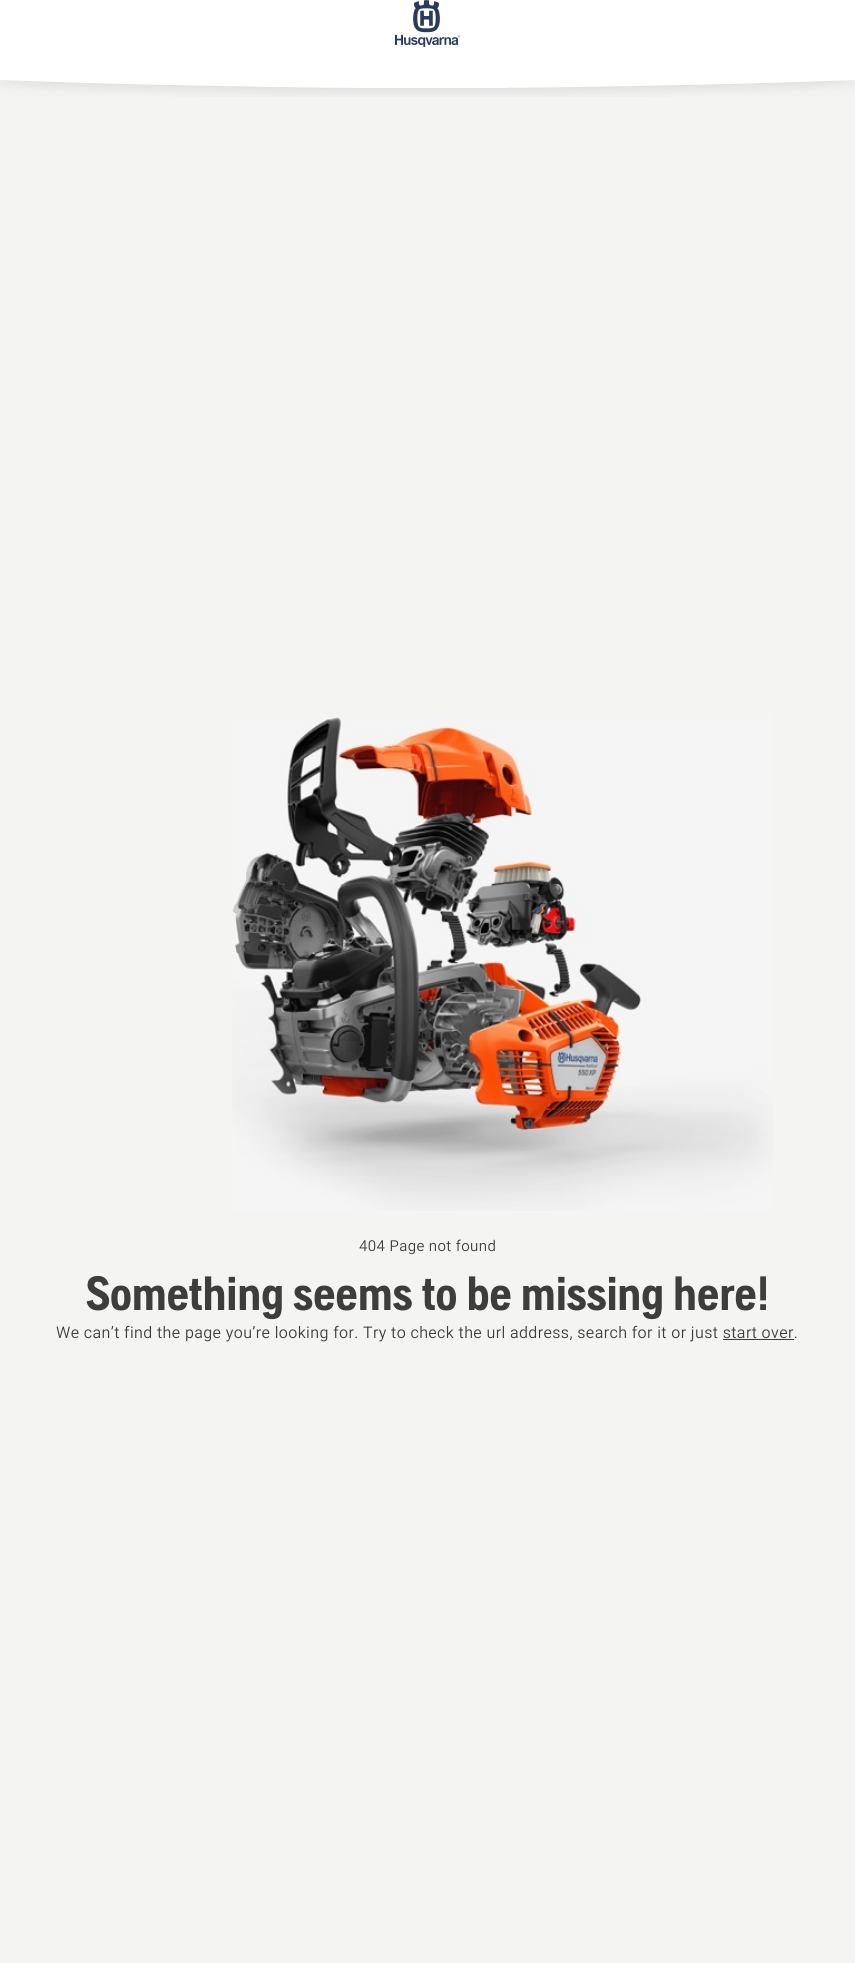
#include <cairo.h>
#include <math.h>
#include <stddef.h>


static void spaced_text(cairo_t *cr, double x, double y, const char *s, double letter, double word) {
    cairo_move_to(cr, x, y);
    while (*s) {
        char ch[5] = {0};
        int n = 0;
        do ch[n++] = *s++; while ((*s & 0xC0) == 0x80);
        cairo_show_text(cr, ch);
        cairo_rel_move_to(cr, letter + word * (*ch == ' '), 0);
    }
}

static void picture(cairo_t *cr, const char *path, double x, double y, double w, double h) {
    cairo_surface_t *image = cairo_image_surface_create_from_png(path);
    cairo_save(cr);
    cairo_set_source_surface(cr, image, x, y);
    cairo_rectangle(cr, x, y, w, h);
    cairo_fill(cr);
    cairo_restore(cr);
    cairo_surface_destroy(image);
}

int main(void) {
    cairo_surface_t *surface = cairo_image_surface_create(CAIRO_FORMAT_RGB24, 855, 1963);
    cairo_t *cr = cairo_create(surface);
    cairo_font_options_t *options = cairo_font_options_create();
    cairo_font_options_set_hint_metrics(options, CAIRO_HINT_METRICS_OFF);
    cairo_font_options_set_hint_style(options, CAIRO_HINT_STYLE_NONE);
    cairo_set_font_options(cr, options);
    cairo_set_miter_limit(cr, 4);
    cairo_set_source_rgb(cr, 1, 1, 1);
    cairo_paint(cr);
    picture(cr, "img1.png", 395, 0, 65, 47);
    cairo_set_source_rgb(cr, 0.957, 0.957, 0.953);
    cairo_rectangle(cr, 0, 80, 855, 1883);
    cairo_fill(cr);
    picture(cr, "img2.png", 0, 80, 855, 17);
    picture(cr, "img3.png", 232, 714, 541, 497);
    cairo_select_font_face(cr, "Roboto Light", CAIRO_FONT_SLANT_NORMAL, CAIRO_FONT_WEIGHT_NORMAL);
    cairo_set_font_size(cr, 15);
    cairo_set_source_rgb(cr, 0.239, 0.239, 0.235);
    spaced_text(cr, 359, 1251, "404 Page not found", 0.4, 0);
    cairo_select_font_face(cr, "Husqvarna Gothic", CAIRO_FONT_SLANT_NORMAL, CAIRO_FONT_WEIGHT_BOLD);
    cairo_set_font_size(cr, 48);
    spaced_text(cr, 86, 1310, "Something seems to be missing here!", -0.4, 0);
    cairo_select_font_face(cr, "Roboto Light", CAIRO_FONT_SLANT_NORMAL, CAIRO_FONT_WEIGHT_NORMAL);
    cairo_set_font_size(cr, 16);
    spaced_text(cr, 56, 1338, "We can’t find the page you’re looking for. Try to check the url address, search for it or just start over.", 0.4, 0);
    cairo_rectangle(cr, 723, 1339, 71, 1);
    cairo_fill(cr);
    cairo_surface_write_to_png(surface, "page.png");
    cairo_font_options_destroy(options);
    cairo_destroy(cr);
    cairo_surface_destroy(surface);
    return 0;
}
